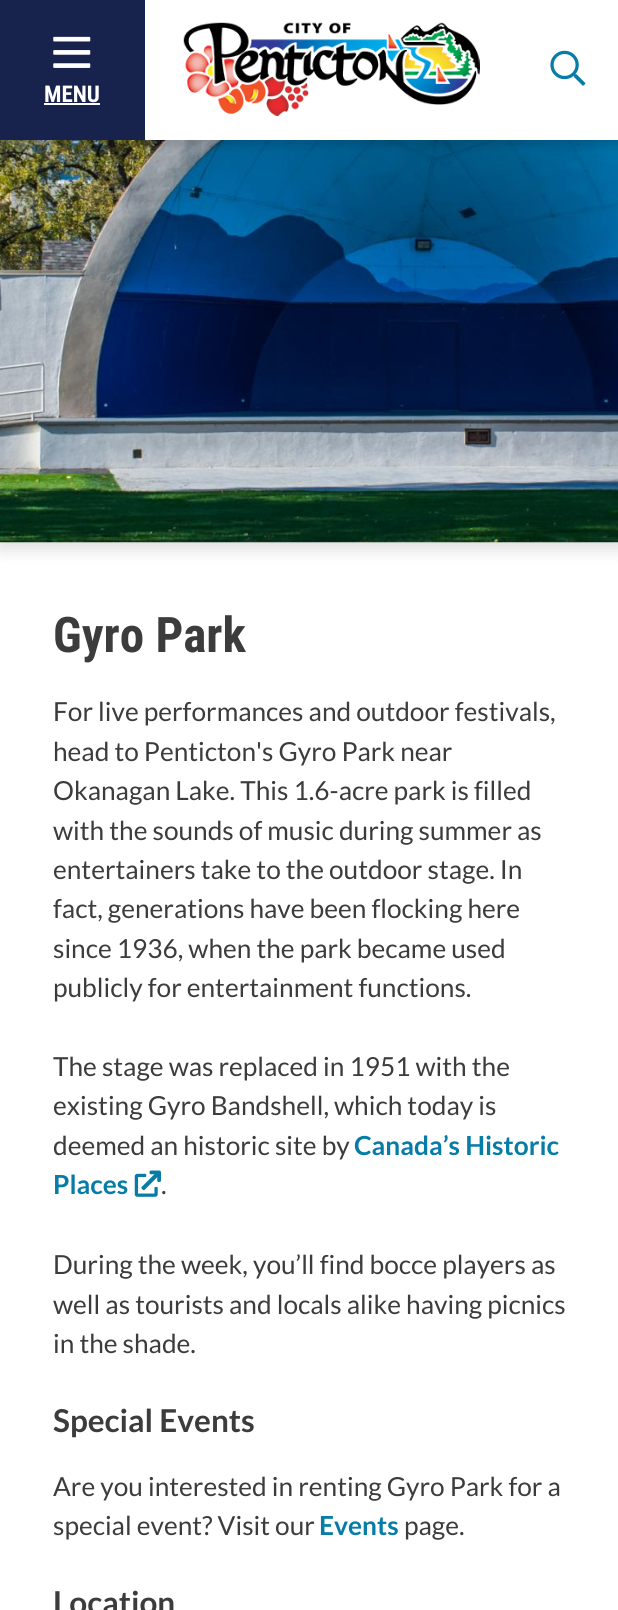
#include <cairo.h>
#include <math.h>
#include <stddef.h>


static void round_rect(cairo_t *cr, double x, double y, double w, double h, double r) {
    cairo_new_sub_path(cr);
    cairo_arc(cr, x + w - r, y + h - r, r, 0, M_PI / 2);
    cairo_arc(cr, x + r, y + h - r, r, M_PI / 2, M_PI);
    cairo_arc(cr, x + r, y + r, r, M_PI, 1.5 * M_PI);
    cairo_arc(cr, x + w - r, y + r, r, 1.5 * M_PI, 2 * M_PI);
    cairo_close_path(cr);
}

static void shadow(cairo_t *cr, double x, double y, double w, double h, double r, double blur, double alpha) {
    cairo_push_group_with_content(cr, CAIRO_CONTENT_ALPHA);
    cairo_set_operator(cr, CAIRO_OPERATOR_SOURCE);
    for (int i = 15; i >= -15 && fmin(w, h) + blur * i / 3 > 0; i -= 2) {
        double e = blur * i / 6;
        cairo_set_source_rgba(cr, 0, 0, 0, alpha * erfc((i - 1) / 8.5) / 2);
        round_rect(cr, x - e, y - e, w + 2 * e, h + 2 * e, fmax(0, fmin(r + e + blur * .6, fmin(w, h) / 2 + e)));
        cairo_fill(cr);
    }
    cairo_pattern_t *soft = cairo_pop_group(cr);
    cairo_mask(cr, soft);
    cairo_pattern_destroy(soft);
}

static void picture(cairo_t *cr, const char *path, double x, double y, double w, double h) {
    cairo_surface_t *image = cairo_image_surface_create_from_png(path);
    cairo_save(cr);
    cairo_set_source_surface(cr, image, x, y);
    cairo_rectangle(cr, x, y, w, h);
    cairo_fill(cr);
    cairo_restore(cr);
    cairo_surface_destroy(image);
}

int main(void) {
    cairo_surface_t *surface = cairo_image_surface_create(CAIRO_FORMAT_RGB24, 618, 1610);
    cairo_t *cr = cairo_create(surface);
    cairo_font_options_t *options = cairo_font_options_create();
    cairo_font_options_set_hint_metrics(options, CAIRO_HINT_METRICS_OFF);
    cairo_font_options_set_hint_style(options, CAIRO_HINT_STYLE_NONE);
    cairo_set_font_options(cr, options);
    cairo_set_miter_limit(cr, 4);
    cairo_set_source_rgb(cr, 1, 1, 1);
    cairo_paint(cr);
    cairo_set_source_rgb(cr, 0, 0, 0);
    shadow(cr, 0, 145, 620, 403, 0, 9, 0.15);
    picture(cr, "img4.png", 0, 140, 618, 403);
    shadow(cr, 0, 5, 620, 140, 0, 5, 0.15);
    cairo_set_source_rgb(cr, 1, 1, 1);
    cairo_rectangle(cr, 145, 0, 473, 140);
    cairo_fill(cr);
    picture(cr, "img1.png", 183, 22, 297, 94);
    picture(cr, "img2.png", 550, 50, 36, 36);
    cairo_set_source_rgb(cr, 0.09, 0.133, 0.302);
    cairo_rectangle(cr, 0, 0, 145, 140);
    cairo_fill(cr);
    picture(cr, "img3.png", 53, 36, 38, 32);
    cairo_select_font_face(cr, "Roboto Condensed", CAIRO_FONT_SLANT_NORMAL, CAIRO_FONT_WEIGHT_BOLD);
    cairo_set_font_size(cr, 23);
    cairo_set_source_rgb(cr, 1, 1, 1);
    cairo_move_to(cr, 44, 102);
    cairo_show_text(cr, "MENU");
    cairo_rectangle(cr, 44, 103, 56, 2);
    cairo_fill(cr);
    cairo_set_font_size(cr, 49);
    cairo_set_source_rgb(cr, 0.235, 0.235, 0.235);
    cairo_move_to(cr, 53, 652);
    cairo_show_text(cr, "Gyro Park");
    cairo_select_font_face(cr, "Lato", CAIRO_FONT_SLANT_NORMAL, CAIRO_FONT_WEIGHT_NORMAL);
    cairo_set_font_size(cr, 26.25);
    cairo_move_to(cr, 53, 721);
    cairo_show_text(cr, "For live performances and outdoor festivals,");
    cairo_move_to(cr, 53, 761);
    cairo_show_text(cr, "head to Penticton's Gyro Park near");
    cairo_move_to(cr, 53, 800);
    cairo_show_text(cr, "Okanagan Lake. This 1.6-acre park is filled");
    cairo_move_to(cr, 53, 840);
    cairo_show_text(cr, "with the sounds of music during summer as");
    cairo_move_to(cr, 53, 879);
    cairo_show_text(cr, "entertainers take to the outdoor stage. In");
    cairo_move_to(cr, 53, 918);
    cairo_show_text(cr, "fact, generations have been flocking here");
    cairo_move_to(cr, 53, 958);
    cairo_show_text(cr, "since 1936, when the park became used");
    cairo_move_to(cr, 53, 997);
    cairo_show_text(cr, "publicly for entertainment functions.");
    cairo_move_to(cr, 53, 1076);
    cairo_show_text(cr, "The stage was replaced in 1951 with the");
    cairo_move_to(cr, 53, 1115);
    cairo_show_text(cr, "existing Gyro Bandshell, which today is");
    cairo_move_to(cr, 53, 1155);
    cairo_show_text(cr, "deemed an historic site by");
    cairo_select_font_face(cr, "Lato", CAIRO_FONT_SLANT_NORMAL, CAIRO_FONT_WEIGHT_BOLD);
    cairo_set_source_rgb(cr, 0.031, 0.486, 0.655);
    cairo_move_to(cr, 354, 1155);
    cairo_show_text(cr, "Canada’s Historic");
    cairo_move_to(cr, 53, 1194);
    cairo_show_text(cr, "Places");
    picture(cr, "img5.png", 134, 1170, 27, 27);
    cairo_select_font_face(cr, "Lato", CAIRO_FONT_SLANT_NORMAL, CAIRO_FONT_WEIGHT_NORMAL);
    cairo_set_source_rgb(cr, 0.235, 0.235, 0.235);
    cairo_move_to(cr, 161, 1194);
    cairo_show_text(cr, ".");
    cairo_move_to(cr, 53, 1274);
    cairo_show_text(cr, "During the week, you’ll find bocce players as");
    cairo_move_to(cr, 53, 1314);
    cairo_show_text(cr, "well as tourists and locals alike having picnics");
    cairo_move_to(cr, 53, 1353);
    cairo_show_text(cr, "in the shade.");
    cairo_select_font_face(cr, "Lato", CAIRO_FONT_SLANT_NORMAL, CAIRO_FONT_WEIGHT_BOLD);
    cairo_set_font_size(cr, 31.5);
    cairo_move_to(cr, 53, 1432);
    cairo_show_text(cr, "Special Events");
    cairo_select_font_face(cr, "Lato", CAIRO_FONT_SLANT_NORMAL, CAIRO_FONT_WEIGHT_NORMAL);
    cairo_set_font_size(cr, 26.25);
    cairo_move_to(cr, 53, 1496);
    cairo_show_text(cr, "Are you interested in renting Gyro Park for a");
    cairo_move_to(cr, 53, 1535);
    cairo_show_text(cr, "special event? Visit our");
    cairo_select_font_face(cr, "Lato", CAIRO_FONT_SLANT_NORMAL, CAIRO_FONT_WEIGHT_BOLD);
    cairo_set_source_rgb(cr, 0.031, 0.486, 0.655);
    cairo_move_to(cr, 319, 1535);
    cairo_show_text(cr, "Events");
    cairo_select_font_face(cr, "Lato", CAIRO_FONT_SLANT_NORMAL, CAIRO_FONT_WEIGHT_NORMAL);
    cairo_set_source_rgb(cr, 0.235, 0.235, 0.235);
    cairo_move_to(cr, 404, 1535);
    cairo_show_text(cr, "page.");
    cairo_select_font_face(cr, "Lato", CAIRO_FONT_SLANT_NORMAL, CAIRO_FONT_WEIGHT_BOLD);
    cairo_set_font_size(cr, 31.5);
    cairo_move_to(cr, 53, 1614);
    cairo_show_text(cr, "Location");
    cairo_surface_write_to_png(surface, "page.png");
    cairo_font_options_destroy(options);
    cairo_destroy(cr);
    cairo_surface_destroy(surface);
    return 0;
}
